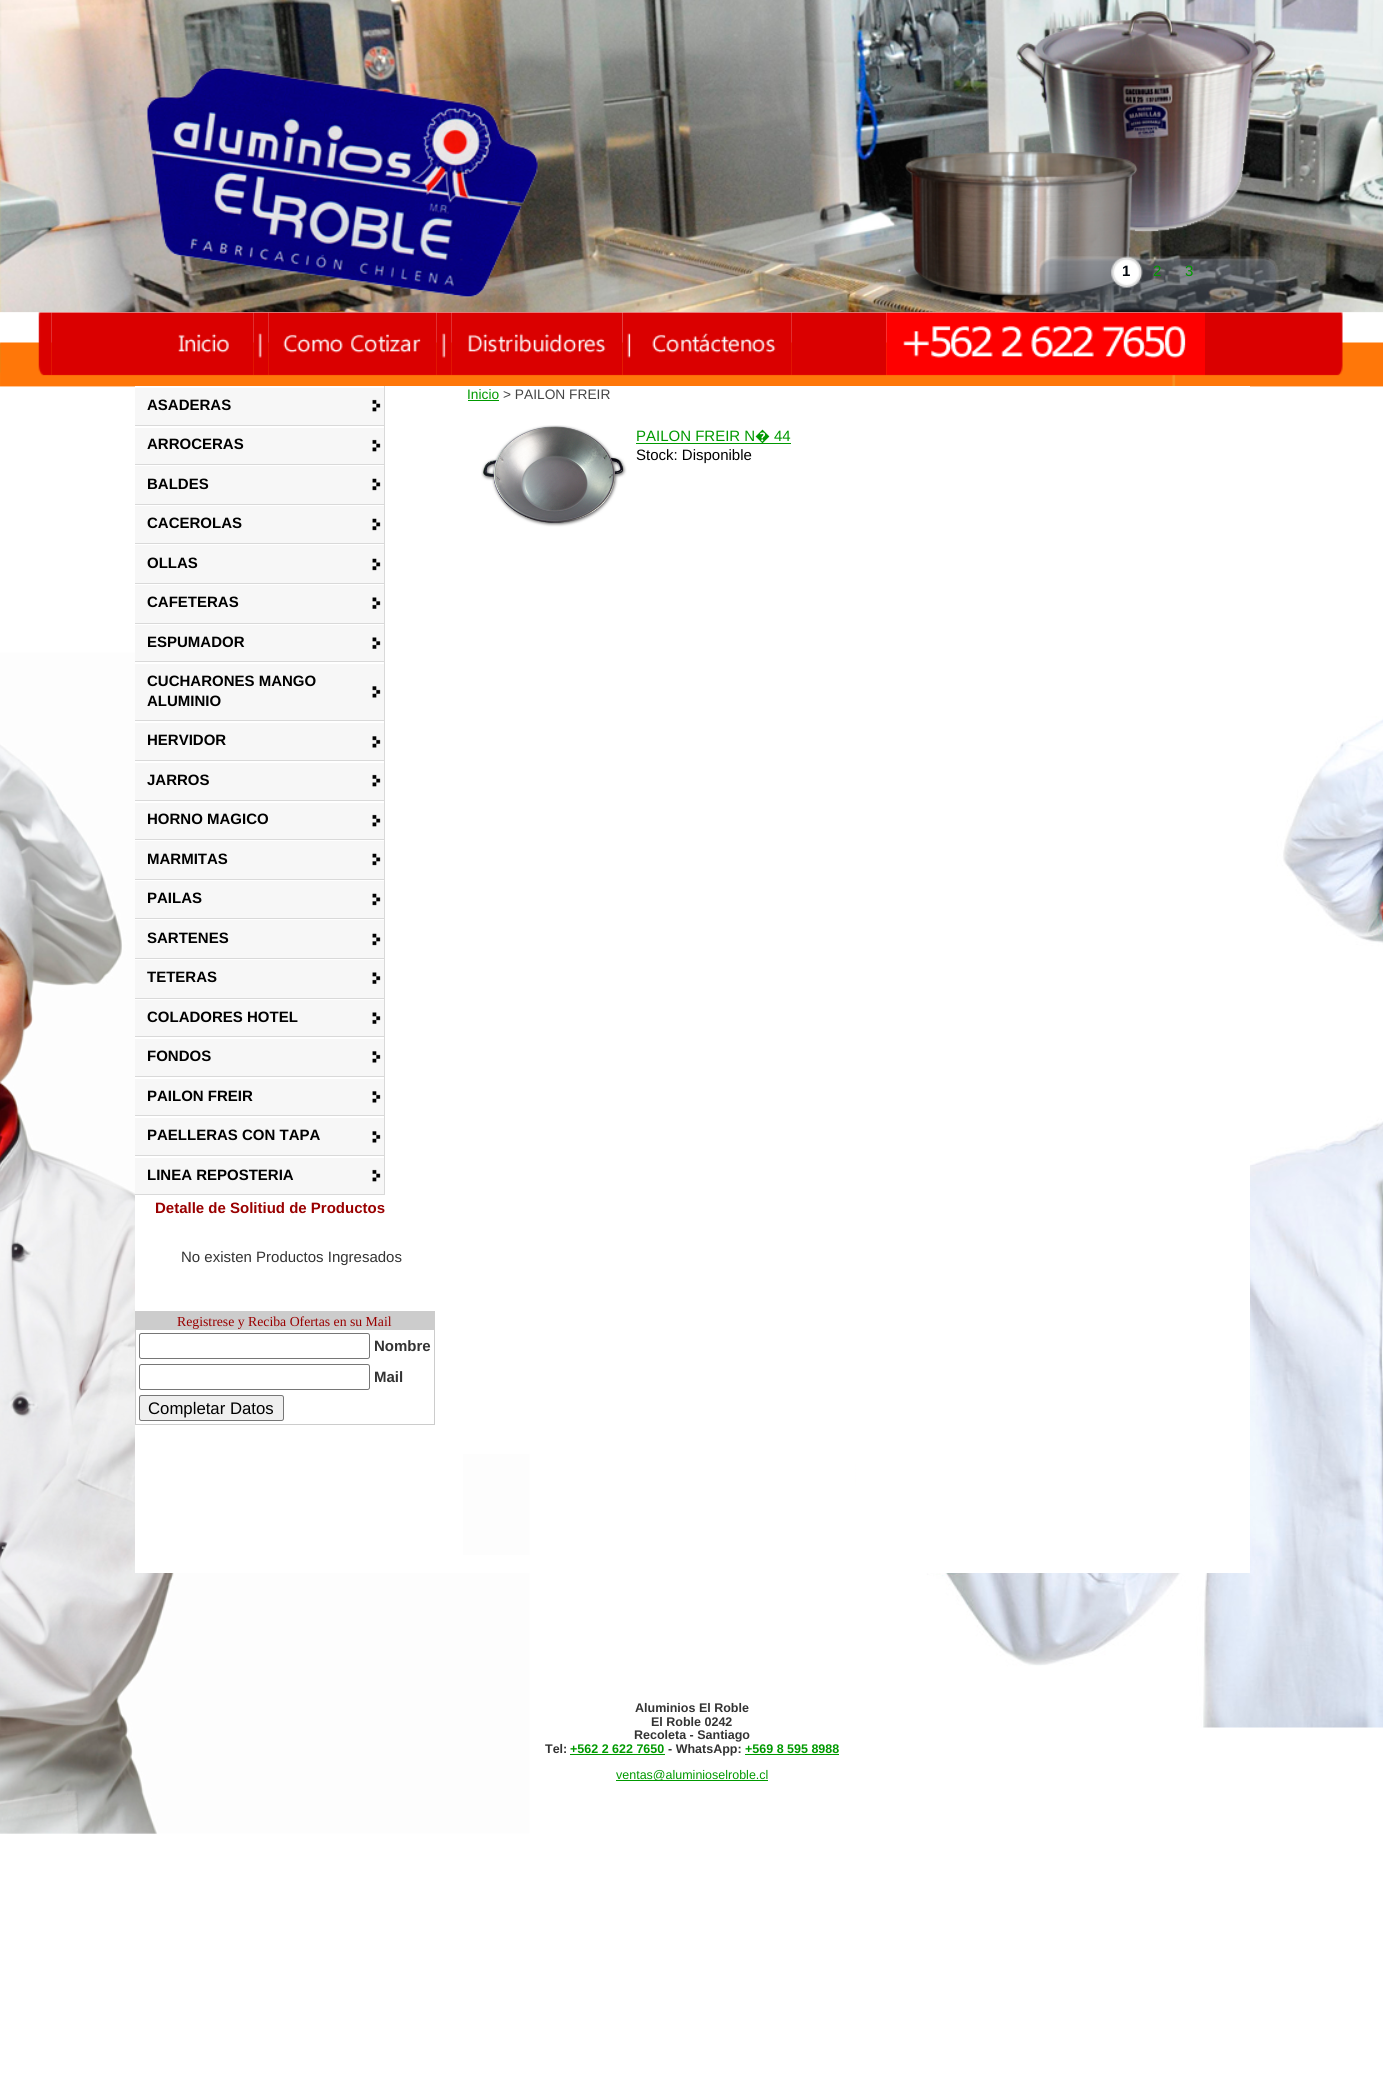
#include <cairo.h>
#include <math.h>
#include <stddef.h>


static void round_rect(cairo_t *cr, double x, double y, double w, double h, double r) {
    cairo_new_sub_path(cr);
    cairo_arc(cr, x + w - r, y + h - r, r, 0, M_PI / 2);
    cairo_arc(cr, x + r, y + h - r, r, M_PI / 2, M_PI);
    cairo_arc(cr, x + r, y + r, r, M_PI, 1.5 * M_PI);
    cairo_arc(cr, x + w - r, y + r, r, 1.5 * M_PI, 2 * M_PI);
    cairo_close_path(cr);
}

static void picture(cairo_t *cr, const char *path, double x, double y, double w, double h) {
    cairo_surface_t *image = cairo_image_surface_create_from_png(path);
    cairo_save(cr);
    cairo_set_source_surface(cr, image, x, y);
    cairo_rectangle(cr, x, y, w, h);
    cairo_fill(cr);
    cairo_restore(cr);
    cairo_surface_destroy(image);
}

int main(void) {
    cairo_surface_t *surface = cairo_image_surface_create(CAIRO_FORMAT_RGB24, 1383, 2084);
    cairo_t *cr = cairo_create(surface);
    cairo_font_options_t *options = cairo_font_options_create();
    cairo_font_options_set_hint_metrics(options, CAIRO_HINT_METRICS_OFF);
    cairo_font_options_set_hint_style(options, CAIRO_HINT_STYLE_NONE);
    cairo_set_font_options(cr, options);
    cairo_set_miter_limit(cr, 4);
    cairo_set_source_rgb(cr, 1, 1, 1);
    cairo_paint(cr);
    picture(cr, "img1.png", 0, 596, 1383, 1238);
    picture(cr, "img2.png", 0, 0, 1383, 313);
    picture(cr, "img3.png", 146, 67, 393, 231);
    picture(cr, "img4.png", 888, 11, 388, 301);
    picture(cr, "img7.png", 0, 312, 1383, 75);
    picture(cr, "img8.png", 0, 312, 1383, 75);
    picture(cr, "img19.png", 800, 312, 87, 64);
    picture(cr, "img20.png", 886, 312, 319, 64);
    picture(cr, "img21.png", 1205, 312, 110, 64);
    picture(cr, "img5.png", 1037, 256, 242, 58);
    picture(cr, "img6.png", 1111, 256, 32, 32);
    cairo_select_font_face(cr, "Liberation Sans", CAIRO_FONT_SLANT_NORMAL, CAIRO_FONT_WEIGHT_BOLD);
    cairo_set_font_size(cr, 15);
    cairo_set_source_rgb(cr, 0, 0.02, 0.047);
    cairo_move_to(cr, 1122, 276);
    cairo_show_text(cr, "1");
    cairo_select_font_face(cr, "Liberation Sans", CAIRO_FONT_SLANT_NORMAL, CAIRO_FONT_WEIGHT_NORMAL);
    cairo_set_source_rgb(cr, 0, 0.6, 0);
    cairo_move_to(cr, 1153, 276);
    cairo_show_text(cr, "2");
    cairo_move_to(cr, 1185, 276);
    cairo_show_text(cr, "3");
    picture(cr, "img9.png", 38, 312, 14, 64);
    picture(cr, "img10.png", 51, 312, 114, 64);
    picture(cr, "img11.png", 165, 312, 89, 64);
    picture(cr, "img12.png", 253, 312, 16, 64);
    picture(cr, "img13.png", 268, 312, 169, 64);
    picture(cr, "img14.png", 436, 312, 16, 64);
    picture(cr, "img15.png", 451, 312, 172, 64);
    picture(cr, "img16.png", 622, 312, 18, 64);
    picture(cr, "img17.png", 640, 312, 152, 64);
    picture(cr, "img18.png", 791, 312, 9, 64);
    picture(cr, "img22.png", 1315, 312, 28, 64);
    cairo_set_source_rgb(cr, 1, 1, 1);
    cairo_rectangle(cr, 135, 386, 328, 1169);
    cairo_fill(cr);
    cairo_set_source_rgb(cr, 0.965, 0.965, 0.965);
    cairo_rectangle(cr, 135, 388, 249, 37);
    cairo_fill(cr);
    picture(cr, "img23.png", 372, 399, 9, 13);
    cairo_set_source_rgb(cr, 0.851, 0.851, 0.851);
    cairo_rectangle(cr, 384, 386, 1, 809);
    cairo_fill(cr);
    cairo_rectangle(cr, 135, 425, 250, 1);
    cairo_fill(cr);
    cairo_select_font_face(cr, "Liberation Sans", CAIRO_FONT_SLANT_NORMAL, CAIRO_FONT_WEIGHT_BOLD);
    cairo_set_source_rgb(cr, 0, 0, 0);
    cairo_move_to(cr, 147, 410);
    cairo_show_text(cr, "ASADERAS");
    cairo_set_source_rgb(cr, 0.965, 0.965, 0.965);
    cairo_rectangle(cr, 135, 428, 249, 36);
    cairo_fill(cr);
    picture(cr, "img23.png", 372, 439, 9, 13);
    cairo_set_source_rgb(cr, 0.851, 0.851, 0.851);
    cairo_rectangle(cr, 135, 464, 250, 1);
    cairo_fill(cr);
    cairo_set_source_rgb(cr, 0, 0, 0);
    cairo_move_to(cr, 147, 449);
    cairo_show_text(cr, "ARROCERAS");
    cairo_set_source_rgb(cr, 0.965, 0.965, 0.965);
    cairo_rectangle(cr, 135, 466, 249, 38);
    cairo_fill(cr);
    picture(cr, "img24.png", 372, 478, 9, 13);
    cairo_set_source_rgb(cr, 0.851, 0.851, 0.851);
    cairo_rectangle(cr, 135, 504, 250, 1);
    cairo_fill(cr);
    cairo_set_source_rgb(cr, 0, 0, 0);
    cairo_move_to(cr, 147, 489);
    cairo_show_text(cr, "BALDES");
    cairo_set_source_rgb(cr, 0.965, 0.965, 0.965);
    cairo_rectangle(cr, 135, 506, 249, 37);
    cairo_fill(cr);
    picture(cr, "img24.png", 372, 518, 9, 13);
    cairo_set_source_rgb(cr, 0.851, 0.851, 0.851);
    cairo_rectangle(cr, 135, 543, 250, 1);
    cairo_fill(cr);
    cairo_set_source_rgb(cr, 0, 0, 0);
    cairo_move_to(cr, 147, 528);
    cairo_show_text(cr, "CACEROLAS");
    cairo_set_source_rgb(cr, 0.965, 0.965, 0.965);
    cairo_rectangle(cr, 135, 545, 249, 38);
    cairo_fill(cr);
    picture(cr, "img24.png", 372, 558, 9, 13);
    cairo_set_source_rgb(cr, 0.851, 0.851, 0.851);
    cairo_rectangle(cr, 135, 583, 250, 1);
    cairo_fill(cr);
    cairo_set_source_rgb(cr, 0, 0, 0);
    cairo_move_to(cr, 147, 568);
    cairo_show_text(cr, "OLLAS");
    cairo_set_source_rgb(cr, 0.965, 0.965, 0.965);
    cairo_rectangle(cr, 135, 585, 249, 38);
    cairo_fill(cr);
    picture(cr, "img25.png", 372, 597, 9, 12);
    cairo_set_source_rgb(cr, 0.851, 0.851, 0.851);
    cairo_rectangle(cr, 135, 623, 250, 1);
    cairo_fill(cr);
    cairo_set_source_rgb(cr, 0, 0, 0);
    cairo_move_to(cr, 147, 607);
    cairo_show_text(cr, "CAFETERAS");
    cairo_set_source_rgb(cr, 0.965, 0.965, 0.965);
    cairo_rectangle(cr, 135, 625, 249, 36);
    cairo_fill(cr);
    picture(cr, "img25.png", 372, 637, 9, 12);
    cairo_set_source_rgb(cr, 0.851, 0.851, 0.851);
    cairo_rectangle(cr, 135, 661, 250, 1);
    cairo_fill(cr);
    cairo_set_source_rgb(cr, 0, 0, 0);
    cairo_move_to(cr, 147, 647);
    cairo_show_text(cr, "ESPUMADOR");
    cairo_set_source_rgb(cr, 0.965, 0.965, 0.965);
    cairo_rectangle(cr, 135, 664, 249, 56);
    cairo_fill(cr);
    picture(cr, "img26.png", 372, 686, 9, 12);
    cairo_set_source_rgb(cr, 0.851, 0.851, 0.851);
    cairo_rectangle(cr, 135, 720, 250, 1);
    cairo_fill(cr);
    cairo_set_source_rgb(cr, 0, 0, 0);
    cairo_move_to(cr, 147, 686);
    cairo_show_text(cr, "CUCHARONES MANGO");
    cairo_move_to(cr, 147, 706);
    cairo_show_text(cr, "ALUMINIO");
    cairo_set_source_rgb(cr, 0.965, 0.965, 0.965);
    cairo_rectangle(cr, 135, 723, 249, 37);
    cairo_fill(cr);
    picture(cr, "img26.png", 372, 736, 9, 12);
    cairo_set_source_rgb(cr, 0.851, 0.851, 0.851);
    cairo_rectangle(cr, 135, 760, 250, 1);
    cairo_fill(cr);
    cairo_set_source_rgb(cr, 0, 0, 0);
    cairo_move_to(cr, 147, 745);
    cairo_show_text(cr, "HERVIDOR");
    cairo_set_source_rgb(cr, 0.965, 0.965, 0.965);
    cairo_rectangle(cr, 135, 763, 249, 37);
    cairo_fill(cr);
    picture(cr, "img23.png", 372, 774, 9, 13);
    cairo_set_source_rgb(cr, 0.851, 0.851, 0.851);
    cairo_rectangle(cr, 135, 800, 250, 1);
    cairo_fill(cr);
    cairo_set_source_rgb(cr, 0, 0, 0);
    cairo_move_to(cr, 147, 785);
    cairo_show_text(cr, "JARROS");
    cairo_set_source_rgb(cr, 0.965, 0.965, 0.965);
    cairo_rectangle(cr, 135, 803, 249, 36);
    cairo_fill(cr);
    picture(cr, "img23.png", 372, 814, 9, 13);
    cairo_set_source_rgb(cr, 0.851, 0.851, 0.851);
    cairo_rectangle(cr, 135, 839, 250, 1);
    cairo_fill(cr);
    cairo_set_source_rgb(cr, 0, 0, 0);
    cairo_move_to(cr, 147, 824);
    cairo_show_text(cr, "HORNO MAGICO");
    cairo_set_source_rgb(cr, 0.965, 0.965, 0.965);
    cairo_rectangle(cr, 135, 841, 249, 38);
    cairo_fill(cr);
    picture(cr, "img24.png", 372, 853, 9, 13);
    cairo_set_source_rgb(cr, 0.851, 0.851, 0.851);
    cairo_rectangle(cr, 135, 879, 250, 1);
    cairo_fill(cr);
    cairo_set_source_rgb(cr, 0, 0, 0);
    cairo_move_to(cr, 147, 864);
    cairo_show_text(cr, "MARMITAS");
    cairo_set_source_rgb(cr, 0.965, 0.965, 0.965);
    cairo_rectangle(cr, 135, 881, 249, 37);
    cairo_fill(cr);
    picture(cr, "img24.png", 372, 893, 9, 13);
    cairo_set_source_rgb(cr, 0.851, 0.851, 0.851);
    cairo_rectangle(cr, 135, 918, 250, 1);
    cairo_fill(cr);
    cairo_set_source_rgb(cr, 0, 0, 0);
    cairo_move_to(cr, 147, 903);
    cairo_show_text(cr, "PAILAS");
    cairo_set_source_rgb(cr, 0.965, 0.965, 0.965);
    cairo_rectangle(cr, 135, 920, 249, 38);
    cairo_fill(cr);
    picture(cr, "img24.png", 372, 933, 9, 13);
    cairo_set_source_rgb(cr, 0.851, 0.851, 0.851);
    cairo_rectangle(cr, 135, 958, 250, 1);
    cairo_fill(cr);
    cairo_set_source_rgb(cr, 0, 0, 0);
    cairo_move_to(cr, 147, 943);
    cairo_show_text(cr, "SARTENES");
    cairo_set_source_rgb(cr, 0.965, 0.965, 0.965);
    cairo_rectangle(cr, 135, 960, 249, 38);
    cairo_fill(cr);
    picture(cr, "img25.png", 372, 972, 9, 12);
    cairo_set_source_rgb(cr, 0.851, 0.851, 0.851);
    cairo_rectangle(cr, 135, 998, 250, 1);
    cairo_fill(cr);
    cairo_set_source_rgb(cr, 0, 0, 0);
    cairo_move_to(cr, 147, 982);
    cairo_show_text(cr, "TETERAS");
    cairo_set_source_rgb(cr, 0.965, 0.965, 0.965);
    cairo_rectangle(cr, 135, 1000, 249, 36);
    cairo_fill(cr);
    picture(cr, "img25.png", 372, 1012, 9, 12);
    cairo_set_source_rgb(cr, 0.851, 0.851, 0.851);
    cairo_rectangle(cr, 135, 1036, 250, 1);
    cairo_fill(cr);
    cairo_set_source_rgb(cr, 0, 0, 0);
    cairo_move_to(cr, 147, 1022);
    cairo_show_text(cr, "COLADORES HOTEL");
    cairo_set_source_rgb(cr, 0.965, 0.965, 0.965);
    cairo_rectangle(cr, 135, 1039, 249, 37);
    cairo_fill(cr);
    picture(cr, "img26.png", 372, 1051, 9, 12);
    cairo_set_source_rgb(cr, 0.851, 0.851, 0.851);
    cairo_rectangle(cr, 135, 1076, 250, 1);
    cairo_fill(cr);
    cairo_set_source_rgb(cr, 0, 0, 0);
    cairo_move_to(cr, 147, 1061);
    cairo_show_text(cr, "FONDOS");
    cairo_set_source_rgb(cr, 0.965, 0.965, 0.965);
    cairo_rectangle(cr, 135, 1079, 249, 36);
    cairo_fill(cr);
    picture(cr, "img26.png", 372, 1091, 9, 12);
    cairo_set_source_rgb(cr, 0.851, 0.851, 0.851);
    cairo_rectangle(cr, 135, 1115, 250, 1);
    cairo_fill(cr);
    cairo_set_source_rgb(cr, 0, 0, 0);
    cairo_move_to(cr, 147, 1101);
    cairo_show_text(cr, "PAILON FREIR");
    cairo_set_source_rgb(cr, 0.965, 0.965, 0.965);
    cairo_rectangle(cr, 135, 1118, 249, 37);
    cairo_fill(cr);
    picture(cr, "img26.png", 372, 1131, 9, 12);
    cairo_set_source_rgb(cr, 0.851, 0.851, 0.851);
    cairo_rectangle(cr, 135, 1155, 250, 1);
    cairo_fill(cr);
    cairo_set_source_rgb(cr, 0, 0, 0);
    cairo_move_to(cr, 147, 1140);
    cairo_show_text(cr, "PAELLERAS CON TAPA");
    cairo_set_source_rgb(cr, 0.965, 0.965, 0.965);
    cairo_rectangle(cr, 135, 1158, 249, 36);
    cairo_fill(cr);
    picture(cr, "img27.png", 372, 1169, 9, 13);
    cairo_set_source_rgb(cr, 0.851, 0.851, 0.851);
    cairo_rectangle(cr, 135, 1194, 250, 1);
    cairo_fill(cr);
    cairo_set_source_rgb(cr, 0, 0, 0);
    cairo_move_to(cr, 147, 1180);
    cairo_show_text(cr, "LINEA REPOSTERIA");
    cairo_set_source_rgb(cr, 0.6, 0, 0);
    cairo_move_to(cr, 155, 1213);
    cairo_show_text(cr, "Detalle de Solitiud de Productos");
    cairo_select_font_face(cr, "Liberation Sans", CAIRO_FONT_SLANT_NORMAL, CAIRO_FONT_WEIGHT_NORMAL);
    cairo_set_source_rgb(cr, 0.2, 0.2, 0.2);
    cairo_move_to(cr, 181, 1262);
    cairo_show_text(cr, "No existen Productos Ingresados");
    cairo_set_source_rgb(cr, 0.8, 0.8, 0.8);
    cairo_rectangle(cr, 135, 1311, 300, 114);
    cairo_fill(cr);
    cairo_select_font_face(cr, "Liberation Serif", CAIRO_FONT_SLANT_NORMAL, CAIRO_FONT_WEIGHT_NORMAL);
    cairo_set_font_size(cr, 13.75);
    cairo_set_source_rgb(cr, 0.6, 0, 0);
    cairo_move_to(cr, 177, 1326);
    cairo_show_text(cr, "Registrese y Reciba Ofertas en su Mail");
    cairo_set_source_rgb(cr, 1, 1, 1);
    cairo_rectangle(cr, 136, 1330, 298, 31);
    cairo_fill(cr);
    round_rect(cr, 139.5, 1333.5, 230, 25, 2);
    cairo_set_source_rgb(cr, 0.463, 0.463, 0.463);
    cairo_set_line_width(cr, 1);
    cairo_stroke(cr);
    cairo_select_font_face(cr, "Liberation Sans", CAIRO_FONT_SLANT_NORMAL, CAIRO_FONT_WEIGHT_BOLD);
    cairo_set_font_size(cr, 15);
    cairo_set_source_rgb(cr, 0.2, 0.2, 0.2);
    cairo_move_to(cr, 374, 1351);
    cairo_show_text(cr, "Nombre");
    cairo_set_source_rgb(cr, 1, 1, 1);
    cairo_rectangle(cr, 136, 1361, 298, 63);
    cairo_fill(cr);
    round_rect(cr, 139.5, 1364.5, 230, 25, 2);
    cairo_set_source_rgb(cr, 0.463, 0.463, 0.463);
    cairo_stroke(cr);
    cairo_set_source_rgb(cr, 0.2, 0.2, 0.2);
    cairo_move_to(cr, 374, 1382);
    cairo_show_text(cr, "Mail");
    cairo_set_source_rgb(cr, 0.937, 0.937, 0.937);
    round_rect(cr, 139.5, 1395.5, 144, 25, 2);
    cairo_fill_preserve(cr);
    cairo_set_source_rgb(cr, 0.463, 0.463, 0.463);
    cairo_stroke(cr);
    cairo_select_font_face(cr, "Liberation Sans", CAIRO_FONT_SLANT_NORMAL, CAIRO_FONT_WEIGHT_NORMAL);
    cairo_set_font_size(cr, 16.75);
    cairo_set_source_rgb(cr, 0, 0, 0);
    cairo_move_to(cr, 148, 1414);
    cairo_show_text(cr, "Completar Datos");
    cairo_set_source_rgb(cr, 1, 1, 1);
    cairo_rectangle(cr, 463, 386, 787, 1068);
    cairo_fill(cr);
    cairo_set_font_size(cr, 13.75);
    cairo_set_source_rgb(cr, 0, 0.6, 0);
    cairo_move_to(cr, 467, 399);
    cairo_show_text(cr, "Inicio");
    cairo_rectangle(cr, 468, 400, 31, 1);
    cairo_fill(cr);
    cairo_set_source_rgb(cr, 0.271, 0.271, 0.271);
    cairo_move_to(cr, 503, 399);
    cairo_show_text(cr, "> PAILON FREIR");
    picture(cr, "img28.png", 481, 425, 146, 102);
    cairo_set_font_size(cr, 15);
    cairo_set_source_rgb(cr, 0, 0.6, 0);
    cairo_move_to(cr, 636, 441);
    cairo_show_text(cr, "PAILON FREIR N");
    cairo_rectangle(cr, 636, 443, 155, 1);
    cairo_fill(cr);
    cairo_select_font_face(cr, "Noto Sans", CAIRO_FONT_SLANT_NORMAL, CAIRO_FONT_WEIGHT_NORMAL);
    cairo_move_to(cr, 755, 441);
    cairo_show_text(cr, "�");
    cairo_select_font_face(cr, "Liberation Sans", CAIRO_FONT_SLANT_NORMAL, CAIRO_FONT_WEIGHT_NORMAL);
    cairo_move_to(cr, 774, 441);
    cairo_show_text(cr, "44");
    cairo_set_source_rgb(cr, 0, 0, 0);
    cairo_move_to(cr, 636, 460);
    cairo_show_text(cr, "Stock: Disponible");
    cairo_set_source_rgb(cr, 1, 1, 1);
    cairo_rectangle(cr, 856, 1454, 394, 101);
    cairo_fill(cr);
    cairo_rectangle(cr, 135, 1555, 1115, 18);
    cairo_fill(cr);
    cairo_select_font_face(cr, "Liberation Sans", CAIRO_FONT_SLANT_NORMAL, CAIRO_FONT_WEIGHT_BOLD);
    cairo_set_font_size(cr, 12.5);
    cairo_set_source_rgb(cr, 0.2, 0.2, 0.2);
    cairo_move_to(cr, 635, 1712);
    cairo_show_text(cr, "Aluminios El Roble");
    cairo_move_to(cr, 651, 1726);
    cairo_show_text(cr, "El Roble 0242");
    cairo_move_to(cr, 634, 1739);
    cairo_show_text(cr, "Recoleta - Santiago");
    cairo_move_to(cr, 545, 1753);
    cairo_show_text(cr, "Tel:");
    cairo_set_source_rgb(cr, 0, 0.6, 0);
    cairo_move_to(cr, 570, 1753);
    cairo_show_text(cr, "+562 2 622 7650");
    cairo_rectangle(cr, 570, 1754, 95, 1);
    cairo_fill(cr);
    cairo_set_source_rgb(cr, 0.2, 0.2, 0.2);
    cairo_move_to(cr, 668, 1753);
    cairo_show_text(cr, "- WhatsApp:");
    cairo_set_source_rgb(cr, 0, 0.6, 0);
    cairo_move_to(cr, 745, 1753);
    cairo_show_text(cr, "+569 8 595 8988");
    cairo_rectangle(cr, 745, 1754, 94, 1);
    cairo_fill(cr);
    cairo_rectangle(cr, 616, 1780, 152, 1);
    cairo_fill(cr);
    cairo_select_font_face(cr, "Liberation Sans", CAIRO_FONT_SLANT_NORMAL, CAIRO_FONT_WEIGHT_NORMAL);
    cairo_move_to(cr, 616, 1779);
    cairo_show_text(cr, "ventas@aluminioselroble.cl");
    cairo_surface_write_to_png(surface, "page.png");
    cairo_font_options_destroy(options);
    cairo_destroy(cr);
    cairo_surface_destroy(surface);
    return 0;
}
